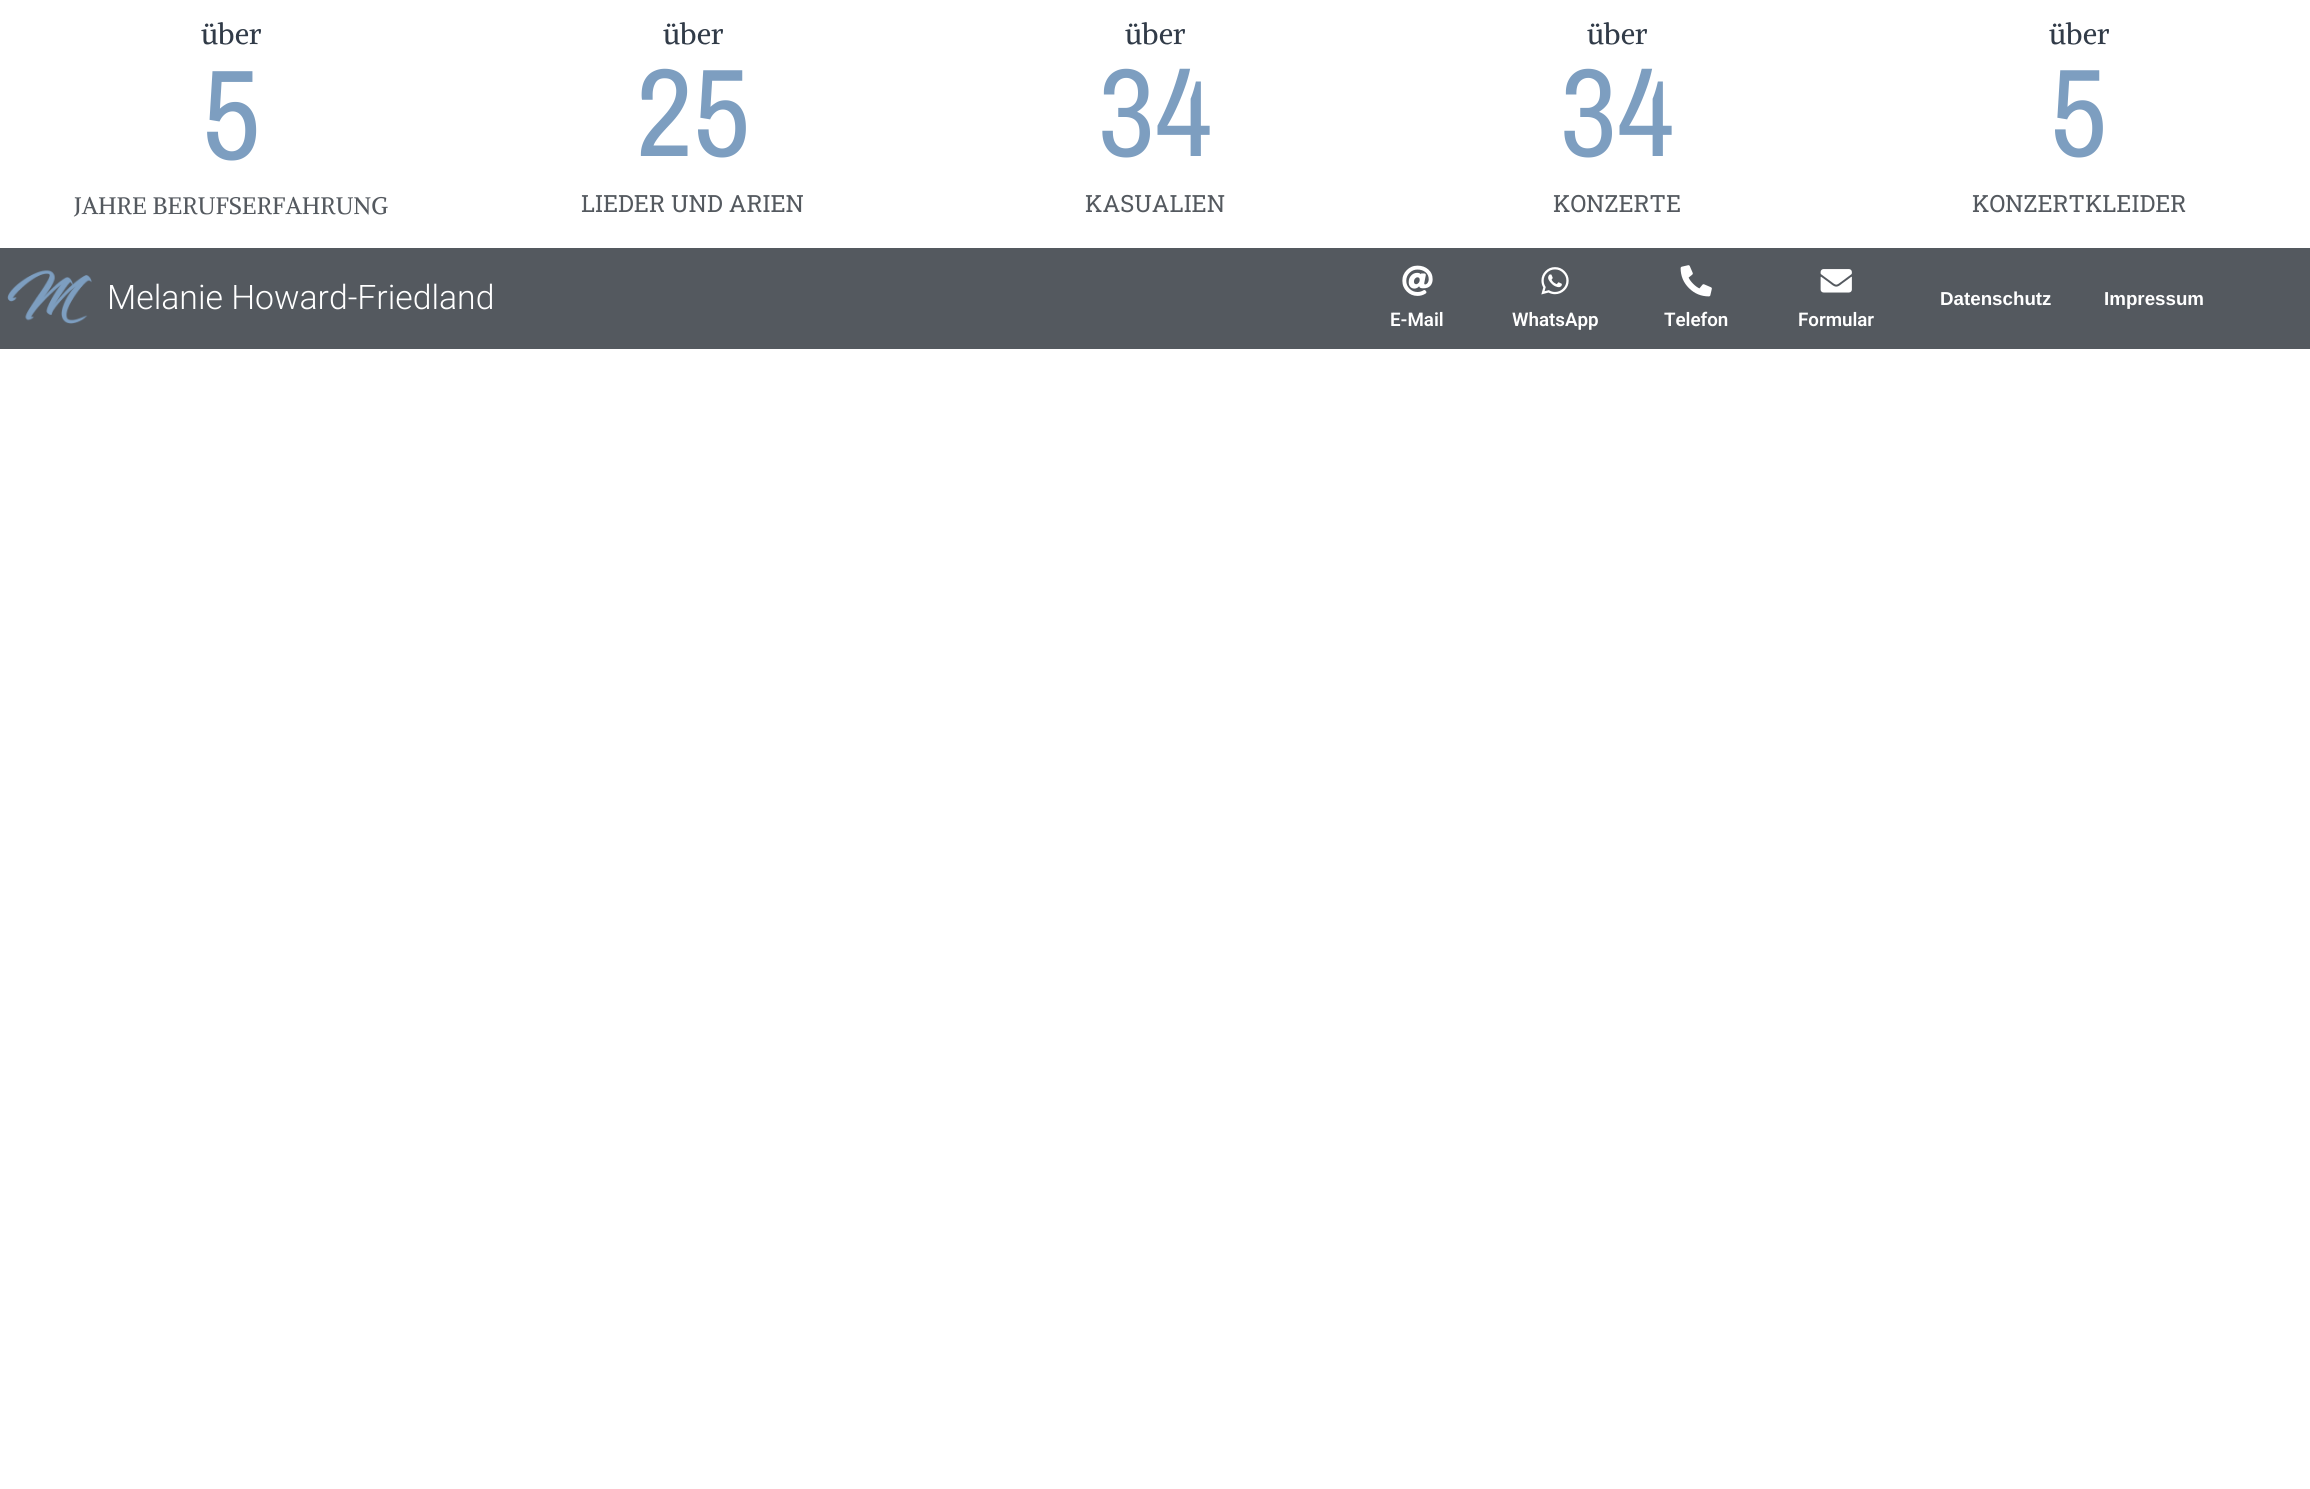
#include <cairo.h>
#include <math.h>
#include <stddef.h>


static void picture(cairo_t *cr, const char *path, double x, double y, double w, double h) {
    cairo_surface_t *image = cairo_image_surface_create_from_png(path);
    cairo_save(cr);
    cairo_set_source_surface(cr, image, x, y);
    cairo_rectangle(cr, x, y, w, h);
    cairo_fill(cr);
    cairo_restore(cr);
    cairo_surface_destroy(image);
}

int main(void) {
    cairo_surface_t *surface = cairo_image_surface_create(CAIRO_FORMAT_RGB24, 2310, 1489);
    cairo_t *cr = cairo_create(surface);
    cairo_font_options_t *options = cairo_font_options_create();
    cairo_font_options_set_hint_metrics(options, CAIRO_HINT_METRICS_OFF);
    cairo_font_options_set_hint_style(options, CAIRO_HINT_STYLE_NONE);
    cairo_set_font_options(cr, options);
    cairo_set_miter_limit(cr, 4);
    cairo_set_source_rgb(cr, 1, 1, 1);
    cairo_paint(cr);
    cairo_select_font_face(cr, "Alike", CAIRO_FONT_SLANT_NORMAL, CAIRO_FONT_WEIGHT_NORMAL);
    cairo_set_font_size(cr, 29);
    cairo_set_source_rgb(cr, 0.192, 0.231, 0.282);
    cairo_move_to(cr, 201, 44);
    cairo_show_text(cr, "über");
    cairo_select_font_face(cr, "Archivo Narrow", CAIRO_FONT_SLANT_NORMAL, CAIRO_FONT_WEIGHT_NORMAL);
    cairo_set_font_size(cr, 128);
    cairo_set_source_rgb(cr, 0.49, 0.62, 0.753);
    cairo_move_to(cr, 202, 159);
    cairo_show_text(cr, "5");
    cairo_select_font_face(cr, "Alike", CAIRO_FONT_SLANT_NORMAL, CAIRO_FONT_WEIGHT_NORMAL);
    cairo_set_font_size(cr, 23.75);
    cairo_set_source_rgb(cr, 0.329, 0.349, 0.373);
    cairo_move_to(cr, 74, 214);
    cairo_show_text(cr, "JAHRE BERUFSERFAHRUNG");
    cairo_set_font_size(cr, 29);
    cairo_set_source_rgb(cr, 0.192, 0.231, 0.282);
    cairo_move_to(cr, 663, 44);
    cairo_show_text(cr, "über");
    cairo_select_font_face(cr, "Archivo Narrow", CAIRO_FONT_SLANT_NORMAL, CAIRO_FONT_WEIGHT_NORMAL);
    cairo_set_font_size(cr, 125);
    cairo_set_source_rgb(cr, 0.49, 0.62, 0.753);
    cairo_move_to(cr, 636, 156);
    cairo_show_text(cr, "25");
    cairo_select_font_face(cr, "Roboto Slab", CAIRO_FONT_SLANT_NORMAL, CAIRO_FONT_WEIGHT_NORMAL);
    cairo_set_font_size(cr, 23.75);
    cairo_set_source_rgb(cr, 0.329, 0.349, 0.373);
    cairo_move_to(cr, 581, 212);
    cairo_show_text(cr, "LIEDER UND ARIEN");
    cairo_select_font_face(cr, "Alike", CAIRO_FONT_SLANT_NORMAL, CAIRO_FONT_WEIGHT_NORMAL);
    cairo_set_font_size(cr, 29);
    cairo_set_source_rgb(cr, 0.192, 0.231, 0.282);
    cairo_move_to(cr, 1125, 44);
    cairo_show_text(cr, "über");
    cairo_select_font_face(cr, "Archivo Narrow", CAIRO_FONT_SLANT_NORMAL, CAIRO_FONT_WEIGHT_NORMAL);
    cairo_set_font_size(cr, 125);
    cairo_set_source_rgb(cr, 0.49, 0.62, 0.753);
    cairo_move_to(cr, 1098, 156);
    cairo_show_text(cr, "34");
    cairo_select_font_face(cr, "Roboto Slab", CAIRO_FONT_SLANT_NORMAL, CAIRO_FONT_WEIGHT_NORMAL);
    cairo_set_font_size(cr, 23.75);
    cairo_set_source_rgb(cr, 0.329, 0.349, 0.373);
    cairo_move_to(cr, 1085, 212);
    cairo_show_text(cr, "KASUALIEN");
    cairo_select_font_face(cr, "Alike", CAIRO_FONT_SLANT_NORMAL, CAIRO_FONT_WEIGHT_NORMAL);
    cairo_set_font_size(cr, 29);
    cairo_set_source_rgb(cr, 0.192, 0.231, 0.282);
    cairo_move_to(cr, 1587, 44);
    cairo_show_text(cr, "über");
    cairo_select_font_face(cr, "Archivo Narrow", CAIRO_FONT_SLANT_NORMAL, CAIRO_FONT_WEIGHT_NORMAL);
    cairo_set_font_size(cr, 125);
    cairo_set_source_rgb(cr, 0.49, 0.62, 0.753);
    cairo_move_to(cr, 1560, 156);
    cairo_show_text(cr, "34");
    cairo_select_font_face(cr, "Roboto Slab", CAIRO_FONT_SLANT_NORMAL, CAIRO_FONT_WEIGHT_NORMAL);
    cairo_set_font_size(cr, 23.75);
    cairo_set_source_rgb(cr, 0.329, 0.349, 0.373);
    cairo_move_to(cr, 1553, 212);
    cairo_show_text(cr, "KONZERTE");
    cairo_select_font_face(cr, "Alike", CAIRO_FONT_SLANT_NORMAL, CAIRO_FONT_WEIGHT_NORMAL);
    cairo_set_font_size(cr, 29);
    cairo_set_source_rgb(cr, 0.192, 0.231, 0.282);
    cairo_move_to(cr, 2049, 44);
    cairo_show_text(cr, "über");
    cairo_select_font_face(cr, "Archivo Narrow", CAIRO_FONT_SLANT_NORMAL, CAIRO_FONT_WEIGHT_NORMAL);
    cairo_set_font_size(cr, 125);
    cairo_set_source_rgb(cr, 0.49, 0.62, 0.753);
    cairo_move_to(cr, 2050, 156);
    cairo_show_text(cr, "5");
    cairo_select_font_face(cr, "Roboto Slab", CAIRO_FONT_SLANT_NORMAL, CAIRO_FONT_WEIGHT_NORMAL);
    cairo_set_font_size(cr, 23.75);
    cairo_set_source_rgb(cr, 0.329, 0.349, 0.373);
    cairo_move_to(cr, 1972, 212);
    cairo_show_text(cr, "KONZERTKLEIDER");
    cairo_rectangle(cr, 0, 248, 2310, 101);
    cairo_fill(cr);
    picture(cr, "img1.png", 7, 270, 85, 54);
    cairo_select_font_face(cr, "Roboto Light", CAIRO_FONT_SLANT_NORMAL, CAIRO_FONT_WEIGHT_NORMAL);
    cairo_set_font_size(cr, 33.75);
    cairo_set_source_rgb(cr, 1, 1, 1);
    cairo_move_to(cr, 107, 309);
    cairo_show_text(cr, "Melanie Howard-Friedland");
    cairo_select_font_face(cr, "Liberation Sans", CAIRO_FONT_SLANT_NORMAL, CAIRO_FONT_WEIGHT_BOLD);
    cairo_set_font_size(cr, 18.75);
    cairo_move_to(cr, 1940, 305);
    cairo_show_text(cr, "Datenschutz");
    cairo_move_to(cr, 2104, 305);
    cairo_show_text(cr, "Impressum");
    picture(cr, "img2.png", 1402, 265, 31, 31);
    cairo_select_font_face(cr, "Roboto SemiBold", CAIRO_FONT_SLANT_NORMAL, CAIRO_FONT_WEIGHT_NORMAL);
    cairo_move_to(cr, 1390, 326);
    cairo_show_text(cr, "E-Mail");
    picture(cr, "img3.png", 1541, 267, 28, 28);
    cairo_move_to(cr, 1512, 326);
    cairo_show_text(cr, "WhatsApp");
    picture(cr, "img4.png", 1680, 265, 32, 32);
    cairo_move_to(cr, 1664, 326);
    cairo_show_text(cr, "Telefon");
    picture(cr, "img5.png", 1820, 269, 32, 24);
    cairo_move_to(cr, 1798, 326);
    cairo_show_text(cr, "Formular");
    cairo_surface_write_to_png(surface, "page.png");
    cairo_font_options_destroy(options);
    cairo_destroy(cr);
    cairo_surface_destroy(surface);
    return 0;
}
